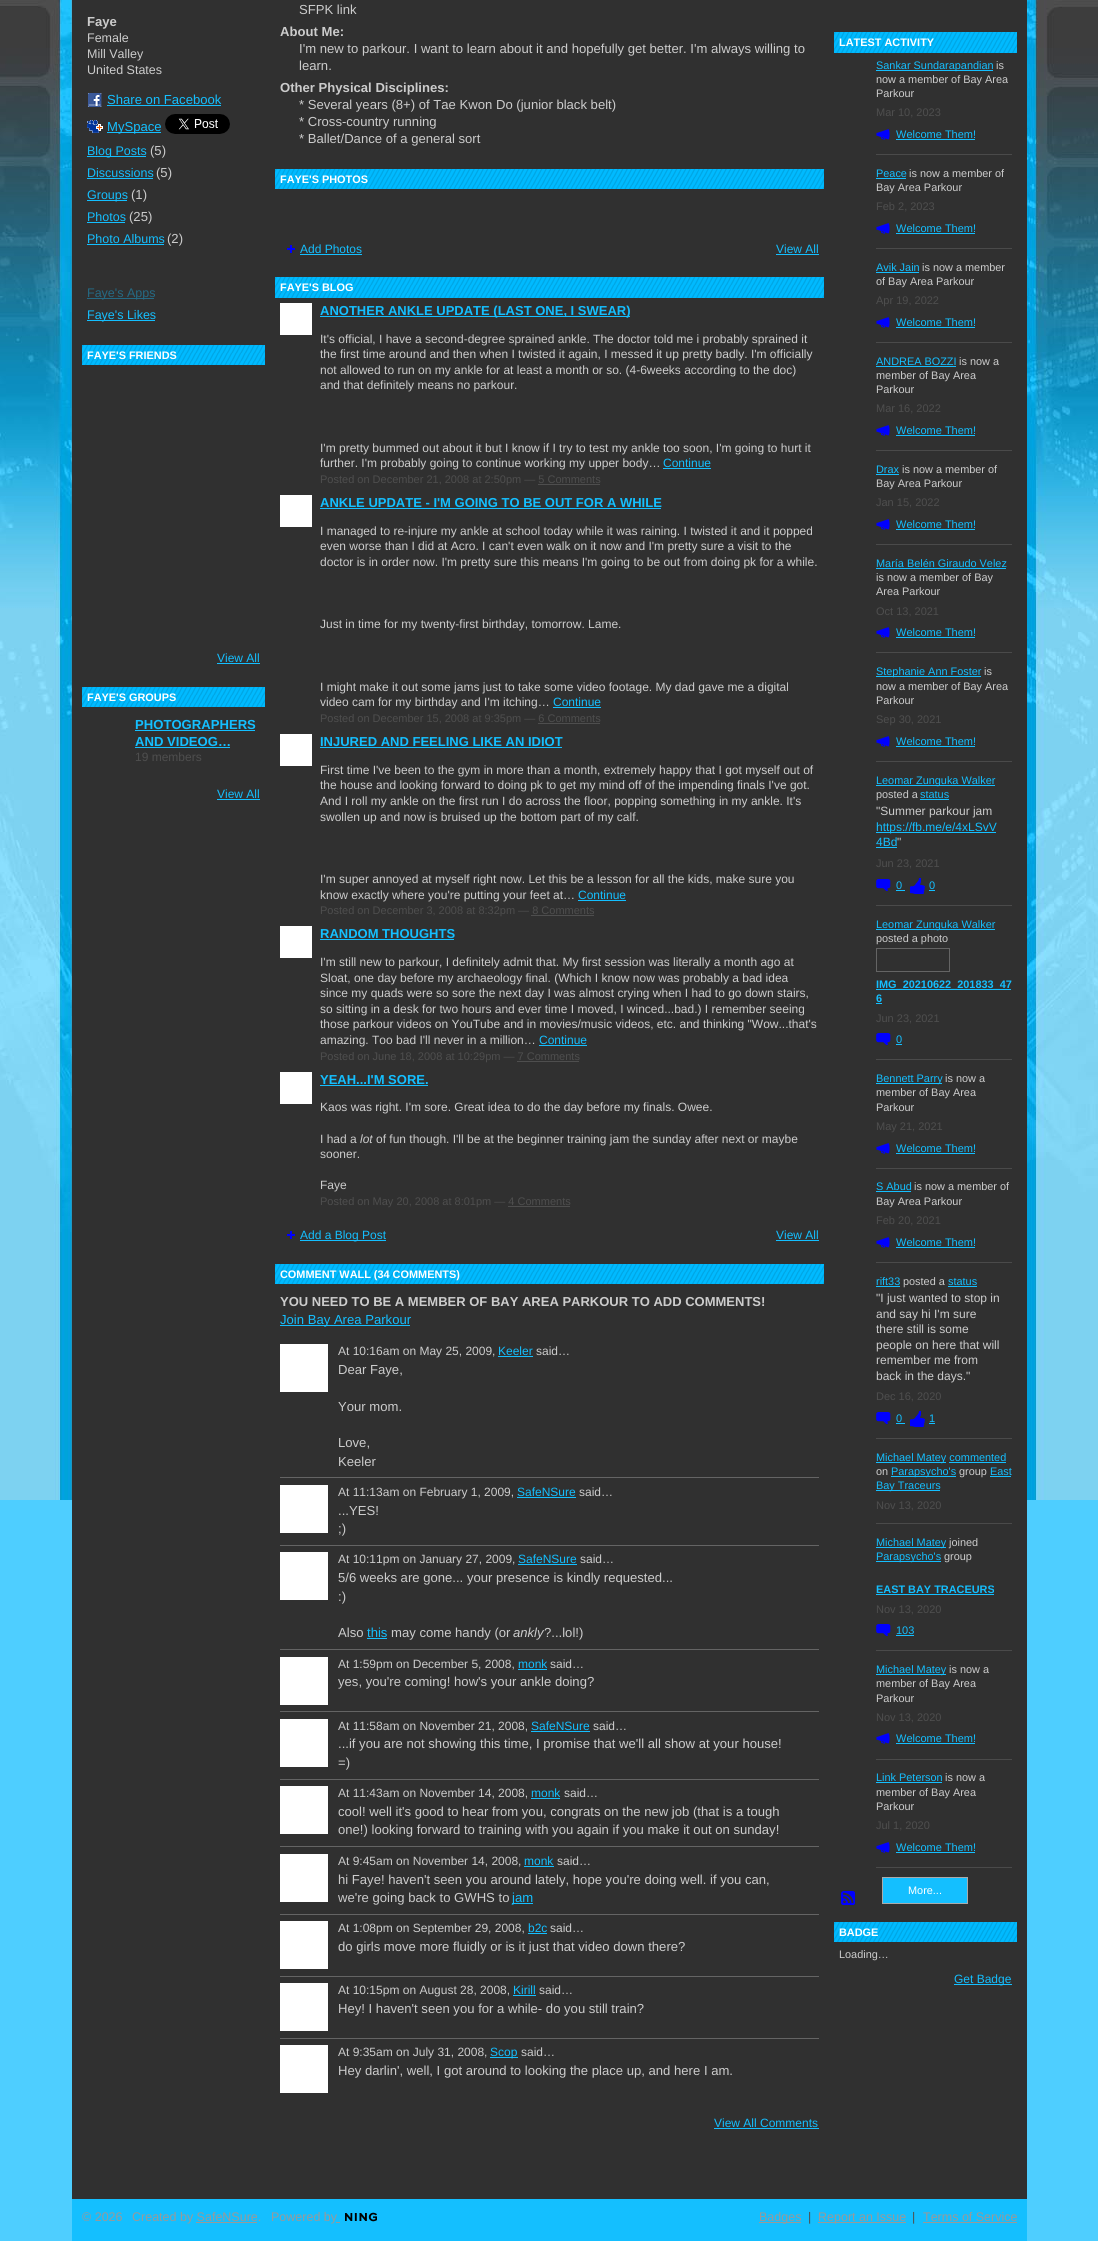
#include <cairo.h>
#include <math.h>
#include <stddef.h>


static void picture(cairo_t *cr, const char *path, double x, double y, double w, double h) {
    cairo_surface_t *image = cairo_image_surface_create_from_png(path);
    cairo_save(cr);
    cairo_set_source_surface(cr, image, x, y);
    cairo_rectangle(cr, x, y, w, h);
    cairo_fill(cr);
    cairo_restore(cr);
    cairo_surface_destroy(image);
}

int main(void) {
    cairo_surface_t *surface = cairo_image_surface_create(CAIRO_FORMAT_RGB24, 1098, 2241);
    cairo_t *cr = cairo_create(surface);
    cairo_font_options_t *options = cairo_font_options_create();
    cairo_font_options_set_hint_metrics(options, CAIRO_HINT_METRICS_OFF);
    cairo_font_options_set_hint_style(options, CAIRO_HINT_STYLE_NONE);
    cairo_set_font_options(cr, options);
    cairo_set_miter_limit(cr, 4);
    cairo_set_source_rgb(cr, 0.306, 0.808, 1);
    cairo_paint(cr);
    picture(cr, "img1.png", 0, 0, 1098, 1500);
    cairo_set_source_rgb(cr, 0.188, 0.188, 0.188);
    cairo_rectangle(cr, 72, 0, 955, 2199);
    cairo_fill(cr);
    cairo_select_font_face(cr, "Liberation Sans", CAIRO_FONT_SLANT_NORMAL, CAIRO_FONT_WEIGHT_BOLD);
    cairo_set_font_size(cr, 13.1);
    cairo_set_source_rgb(cr, 0.8, 0.8, 0.8);
    cairo_move_to(cr, 87, 26);
    cairo_show_text(cr, "Faye");
    cairo_select_font_face(cr, "Liberation Sans", CAIRO_FONT_SLANT_NORMAL, CAIRO_FONT_WEIGHT_NORMAL);
    cairo_set_font_size(cr, 12.5);
    cairo_move_to(cr, 87, 42);
    cairo_show_text(cr, "Female");
    cairo_move_to(cr, 87, 58);
    cairo_show_text(cr, "Mill Valley");
    cairo_move_to(cr, 87, 74);
    cairo_show_text(cr, "United States");
    picture(cr, "img2.png", 88, 93, 14, 14);
    cairo_set_font_size(cr, 13.1);
    cairo_set_source_rgb(cr, 0.082, 0.749, 1);
    cairo_move_to(cr, 107, 104);
    cairo_show_text(cr, "Share on Facebook");
    cairo_rectangle(cr, 107, 105, 114, 1);
    cairo_fill(cr);
    picture(cr, "img3.png", 87, 120, 16, 13);
    cairo_rectangle(cr, 107, 132, 54, 1);
    cairo_fill(cr);
    cairo_move_to(cr, 107, 131);
    cairo_show_text(cr, "MySpace");
    picture(cr, "img4.png", 165, 114, 65, 20);
    cairo_rectangle(cr, 87, 156, 59, 1);
    cairo_fill(cr);
    cairo_set_font_size(cr, 12.5);
    cairo_move_to(cr, 87, 155);
    cairo_show_text(cr, "Blog Posts");
    cairo_set_font_size(cr, 13.1);
    cairo_set_source_rgb(cr, 0.8, 0.8, 0.8);
    cairo_move_to(cr, 150, 155);
    cairo_show_text(cr, "(5)");
    cairo_set_font_size(cr, 12.5);
    cairo_set_source_rgb(cr, 0.082, 0.749, 1);
    cairo_move_to(cr, 87, 177);
    cairo_show_text(cr, "Discussions");
    cairo_rectangle(cr, 87, 178, 66, 1);
    cairo_fill(cr);
    cairo_set_font_size(cr, 13.1);
    cairo_set_source_rgb(cr, 0.8, 0.8, 0.8);
    cairo_move_to(cr, 156, 177);
    cairo_show_text(cr, "(5)");
    cairo_set_source_rgb(cr, 0.082, 0.749, 1);
    cairo_rectangle(cr, 87, 200, 40, 1);
    cairo_fill(cr);
    cairo_set_font_size(cr, 12.5);
    cairo_move_to(cr, 87, 199);
    cairo_show_text(cr, "Groups");
    cairo_set_font_size(cr, 13.1);
    cairo_set_source_rgb(cr, 0.8, 0.8, 0.8);
    cairo_move_to(cr, 131, 199);
    cairo_show_text(cr, "(1)");
    cairo_set_font_size(cr, 12.5);
    cairo_set_source_rgb(cr, 0.082, 0.749, 1);
    cairo_move_to(cr, 87, 221);
    cairo_show_text(cr, "Photos");
    cairo_rectangle(cr, 87, 222, 38, 1);
    cairo_fill(cr);
    cairo_set_font_size(cr, 13.1);
    cairo_set_source_rgb(cr, 0.8, 0.8, 0.8);
    cairo_move_to(cr, 129, 221);
    cairo_show_text(cr, "(25)");
    cairo_set_font_size(cr, 12.5);
    cairo_set_source_rgb(cr, 0.082, 0.749, 1);
    cairo_move_to(cr, 87, 243);
    cairo_show_text(cr, "Photo Albums");
    cairo_rectangle(cr, 87, 244, 77, 1);
    cairo_fill(cr);
    cairo_set_font_size(cr, 13.1);
    cairo_set_source_rgb(cr, 0.8, 0.8, 0.8);
    cairo_move_to(cr, 167, 243);
    cairo_show_text(cr, "(2)");
    cairo_set_source_rgb(cr, 0.145, 0.412, 0.514);
    cairo_rectangle(cr, 87, 298, 67, 1);
    cairo_fill(cr);
    cairo_set_font_size(cr, 12.5);
    cairo_move_to(cr, 87, 297);
    cairo_show_text(cr, "Faye's Apps");
    cairo_set_source_rgb(cr, 0.082, 0.749, 1);
    cairo_rectangle(cr, 87, 320, 68, 1);
    cairo_fill(cr);
    cairo_move_to(cr, 87, 319);
    cairo_show_text(cr, "Faye's Likes");
    picture(cr, "img5.png", 82, 345, 183, 20);
    cairo_select_font_face(cr, "Liberation Sans", CAIRO_FONT_SLANT_NORMAL, CAIRO_FONT_WEIGHT_BOLD);
    cairo_set_font_size(cr, 10.9);
    cairo_set_source_rgb(cr, 1, 1, 1);
    cairo_move_to(cr, 87, 359);
    cairo_show_text(cr, "FAYE'S FRIENDS");
    cairo_select_font_face(cr, "Liberation Sans", CAIRO_FONT_SLANT_NORMAL, CAIRO_FONT_WEIGHT_NORMAL);
    cairo_set_font_size(cr, 12);
    cairo_set_source_rgb(cr, 0.082, 0.749, 1);
    cairo_move_to(cr, 217, 662);
    cairo_show_text(cr, "View All");
    cairo_rectangle(cr, 217, 663, 43, 1);
    cairo_fill(cr);
    picture(cr, "img5.png", 82, 687, 183, 20);
    cairo_select_font_face(cr, "Liberation Sans", CAIRO_FONT_SLANT_NORMAL, CAIRO_FONT_WEIGHT_BOLD);
    cairo_set_font_size(cr, 10.9);
    cairo_set_source_rgb(cr, 1, 1, 1);
    cairo_move_to(cr, 87, 701);
    cairo_show_text(cr, "FAYE'S GROUPS");
    cairo_set_font_size(cr, 13.1);
    cairo_set_source_rgb(cr, 0.082, 0.749, 1);
    cairo_move_to(cr, 135, 729);
    cairo_show_text(cr, "PHOTOGRAPHERS");
    cairo_rectangle(cr, 135, 730, 120, 1);
    cairo_fill(cr);
    cairo_move_to(cr, 135, 746);
    cairo_show_text(cr, "AND VIDEOG…");
    cairo_rectangle(cr, 135, 747, 95, 1);
    cairo_fill(cr);
    cairo_select_font_face(cr, "Liberation Sans", CAIRO_FONT_SLANT_NORMAL, CAIRO_FONT_WEIGHT_NORMAL);
    cairo_set_font_size(cr, 12);
    cairo_set_source_rgb(cr, 0.306, 0.306, 0.306);
    cairo_move_to(cr, 135, 761);
    cairo_show_text(cr, "19 members");
    cairo_set_source_rgb(cr, 0.082, 0.749, 1);
    cairo_move_to(cr, 217, 798);
    cairo_show_text(cr, "View All");
    cairo_rectangle(cr, 217, 799, 43, 1);
    cairo_fill(cr);
    cairo_set_font_size(cr, 13.1);
    cairo_set_source_rgb(cr, 0.8, 0.8, 0.8);
    cairo_move_to(cr, 299, 14);
    cairo_show_text(cr, "SFPK link");
    cairo_select_font_face(cr, "Liberation Sans", CAIRO_FONT_SLANT_NORMAL, CAIRO_FONT_WEIGHT_BOLD);
    cairo_move_to(cr, 280, 36);
    cairo_show_text(cr, "About Me:");
    cairo_select_font_face(cr, "Liberation Sans", CAIRO_FONT_SLANT_NORMAL, CAIRO_FONT_WEIGHT_NORMAL);
    cairo_move_to(cr, 299, 53);
    cairo_show_text(cr, "I'm new to parkour. I want to learn about it and hopefully get better. I'm always willing to");
    cairo_move_to(cr, 299, 70);
    cairo_show_text(cr, "learn.");
    cairo_select_font_face(cr, "Liberation Sans", CAIRO_FONT_SLANT_NORMAL, CAIRO_FONT_WEIGHT_BOLD);
    cairo_move_to(cr, 280, 92);
    cairo_show_text(cr, "Other Physical Disciplines:");
    cairo_select_font_face(cr, "Liberation Sans", CAIRO_FONT_SLANT_NORMAL, CAIRO_FONT_WEIGHT_NORMAL);
    cairo_move_to(cr, 299, 109);
    cairo_show_text(cr, "* Several years (8+) of Tae Kwon Do (junior black belt)");
    cairo_move_to(cr, 299, 126);
    cairo_show_text(cr, "* Cross-country running");
    cairo_move_to(cr, 299, 143);
    cairo_show_text(cr, "* Ballet/Dance of a general sort");
    picture(cr, "img6.png", 275, 169, 549, 20);
    cairo_select_font_face(cr, "Liberation Sans", CAIRO_FONT_SLANT_NORMAL, CAIRO_FONT_WEIGHT_BOLD);
    cairo_set_font_size(cr, 10.9);
    cairo_set_source_rgb(cr, 1, 1, 1);
    cairo_move_to(cr, 280, 183);
    cairo_show_text(cr, "FAYE'S PHOTOS");
    picture(cr, "img7.png", 287, 245, 8, 8);
    cairo_select_font_face(cr, "Liberation Sans", CAIRO_FONT_SLANT_NORMAL, CAIRO_FONT_WEIGHT_NORMAL);
    cairo_set_font_size(cr, 12);
    cairo_set_source_rgb(cr, 0.082, 0.749, 1);
    cairo_move_to(cr, 300, 253);
    cairo_show_text(cr, "Add Photos");
    cairo_rectangle(cr, 300, 254, 62, 1);
    cairo_fill(cr);
    cairo_move_to(cr, 776, 253);
    cairo_show_text(cr, "View All");
    cairo_rectangle(cr, 776, 254, 43, 1);
    cairo_fill(cr);
    picture(cr, "img8.png", 275, 277, 549, 21);
    cairo_select_font_face(cr, "Liberation Sans", CAIRO_FONT_SLANT_NORMAL, CAIRO_FONT_WEIGHT_BOLD);
    cairo_set_font_size(cr, 10.9);
    cairo_set_source_rgb(cr, 1, 1, 1);
    cairo_move_to(cr, 280, 291);
    cairo_show_text(cr, "FAYE'S BLOG");
    cairo_rectangle(cr, 280, 303, 32, 32);
    cairo_fill(cr);
    cairo_set_source_rgb(cr, 0.082, 0.749, 1);
    cairo_rectangle(cr, 320, 316, 310, 1);
    cairo_fill(cr);
    cairo_set_font_size(cr, 13);
    cairo_move_to(cr, 320, 315);
    cairo_show_text(cr, "ANOTHER ANKLE UPDATE (LAST ONE, I SWEAR)");
    cairo_select_font_face(cr, "Liberation Sans", CAIRO_FONT_SLANT_NORMAL, CAIRO_FONT_WEIGHT_NORMAL);
    cairo_set_font_size(cr, 12);
    cairo_set_source_rgb(cr, 0.8, 0.8, 0.8);
    cairo_move_to(cr, 320, 343);
    cairo_show_text(cr, "It's official, I have a second-degree sprained ankle. The doctor told me i probably sprained it");
    cairo_move_to(cr, 320, 358);
    cairo_show_text(cr, "the first time around and then when I twisted it again, I messed it up pretty badly. I'm officially");
    cairo_move_to(cr, 320, 374);
    cairo_show_text(cr, "not allowed to run on my ankle for at least a month or so. (4-6weeks according to the doc)");
    cairo_move_to(cr, 320, 389);
    cairo_show_text(cr, "and that definitely means no parkour.");
    cairo_move_to(cr, 320, 452);
    cairo_show_text(cr, "I'm pretty bummed out about it but I know if I try to test my ankle too soon, I'm going to hurt it");
    cairo_move_to(cr, 320, 467);
    cairo_show_text(cr, "further. I'm probably going to continue working my upper body…");
    cairo_set_source_rgb(cr, 0.082, 0.749, 1);
    cairo_move_to(cr, 663, 467);
    cairo_show_text(cr, "Continue");
    cairo_rectangle(cr, 663, 468, 48, 1);
    cairo_fill(cr);
    cairo_set_font_size(cr, 11);
    cairo_set_source_rgb(cr, 0.306, 0.306, 0.306);
    cairo_move_to(cr, 320, 483);
    cairo_show_text(cr, "Posted on December 21, 2008 at 2:50pm — 5 Comments");
    cairo_rectangle(cr, 538, 484, 62, 1);
    cairo_fill(cr);
    cairo_set_source_rgb(cr, 1, 1, 1);
    cairo_rectangle(cr, 280, 495, 32, 32);
    cairo_fill(cr);
    cairo_select_font_face(cr, "Liberation Sans", CAIRO_FONT_SLANT_NORMAL, CAIRO_FONT_WEIGHT_BOLD);
    cairo_set_font_size(cr, 13);
    cairo_set_source_rgb(cr, 0.082, 0.749, 1);
    cairo_move_to(cr, 320, 507);
    cairo_show_text(cr, "ANKLE UPDATE - I'M GOING TO BE OUT FOR A WHILE");
    cairo_rectangle(cr, 320, 508, 341, 1);
    cairo_fill(cr);
    cairo_select_font_face(cr, "Liberation Sans", CAIRO_FONT_SLANT_NORMAL, CAIRO_FONT_WEIGHT_NORMAL);
    cairo_set_font_size(cr, 12);
    cairo_set_source_rgb(cr, 0.8, 0.8, 0.8);
    cairo_move_to(cr, 320, 535);
    cairo_show_text(cr, "I managed to re-injure my ankle at school today while it was raining. I twisted it and it popped");
    cairo_move_to(cr, 320, 550);
    cairo_show_text(cr, "even worse than I did at Acro. I can't even walk on it now and I'm pretty sure a visit to the");
    cairo_move_to(cr, 320, 566);
    cairo_show_text(cr, "doctor is in order now. I'm pretty sure this means I'm going to be out from doing pk for a while.");
    cairo_move_to(cr, 320, 628);
    cairo_show_text(cr, "Just in time for my twenty-first birthday, tomorrow. Lame.");
    cairo_move_to(cr, 320, 691);
    cairo_show_text(cr, "I might make it out some jams just to take some video footage. My dad gave me a digital");
    cairo_move_to(cr, 320, 706);
    cairo_show_text(cr, "video cam for my birthday and I'm itching…");
    cairo_set_source_rgb(cr, 0.082, 0.749, 1);
    cairo_move_to(cr, 553, 706);
    cairo_show_text(cr, "Continue");
    cairo_rectangle(cr, 553, 707, 48, 1);
    cairo_fill(cr);
    cairo_set_font_size(cr, 11);
    cairo_set_source_rgb(cr, 0.306, 0.306, 0.306);
    cairo_move_to(cr, 320, 722);
    cairo_show_text(cr, "Posted on December 15, 2008 at 9:35pm — 6 Comments");
    cairo_rectangle(cr, 538, 723, 62, 1);
    cairo_fill(cr);
    cairo_set_source_rgb(cr, 1, 1, 1);
    cairo_rectangle(cr, 280, 734, 32, 32);
    cairo_fill(cr);
    cairo_select_font_face(cr, "Liberation Sans", CAIRO_FONT_SLANT_NORMAL, CAIRO_FONT_WEIGHT_BOLD);
    cairo_set_font_size(cr, 13);
    cairo_set_source_rgb(cr, 0.082, 0.749, 1);
    cairo_move_to(cr, 320, 746);
    cairo_show_text(cr, "INJURED AND FEELING LIKE AN IDIOT");
    cairo_rectangle(cr, 320, 747, 242, 1);
    cairo_fill(cr);
    cairo_select_font_face(cr, "Liberation Sans", CAIRO_FONT_SLANT_NORMAL, CAIRO_FONT_WEIGHT_NORMAL);
    cairo_set_font_size(cr, 12);
    cairo_set_source_rgb(cr, 0.8, 0.8, 0.8);
    cairo_move_to(cr, 320, 774);
    cairo_show_text(cr, "First time I've been to the gym in more than a month, extremely happy that I got myself out of");
    cairo_move_to(cr, 320, 789);
    cairo_show_text(cr, "the house and looking forward to doing pk to get my mind off of the impending finals I've got.");
    cairo_move_to(cr, 320, 805);
    cairo_show_text(cr, "And I roll my ankle on the first run I do across the floor, popping something in my ankle. It's");
    cairo_move_to(cr, 320, 821);
    cairo_show_text(cr, "swollen up and now is bruised up the bottom part of my calf.");
    cairo_move_to(cr, 320, 883);
    cairo_show_text(cr, "I'm super annoyed at myself right now. Let this be a lesson for all the kids, make sure you");
    cairo_move_to(cr, 320, 899);
    cairo_show_text(cr, "know exactly where you're putting your feet at…");
    cairo_set_source_rgb(cr, 0.082, 0.749, 1);
    cairo_move_to(cr, 578, 899);
    cairo_show_text(cr, "Continue");
    cairo_rectangle(cr, 578, 900, 48, 1);
    cairo_fill(cr);
    cairo_set_font_size(cr, 11);
    cairo_set_source_rgb(cr, 0.306, 0.306, 0.306);
    cairo_move_to(cr, 320, 914);
    cairo_show_text(cr, "Posted on December 3, 2008 at 8:32pm — 8 Comments");
    cairo_rectangle(cr, 531, 915, 63, 1);
    cairo_fill(cr);
    cairo_set_source_rgb(cr, 1, 1, 1);
    cairo_rectangle(cr, 280, 926, 32, 32);
    cairo_fill(cr);
    cairo_select_font_face(cr, "Liberation Sans", CAIRO_FONT_SLANT_NORMAL, CAIRO_FONT_WEIGHT_BOLD);
    cairo_set_font_size(cr, 13);
    cairo_set_source_rgb(cr, 0.082, 0.749, 1);
    cairo_move_to(cr, 320, 938);
    cairo_show_text(cr, "RANDOM THOUGHTS");
    cairo_rectangle(cr, 320, 939, 134, 1);
    cairo_fill(cr);
    cairo_select_font_face(cr, "Liberation Sans", CAIRO_FONT_SLANT_NORMAL, CAIRO_FONT_WEIGHT_NORMAL);
    cairo_set_font_size(cr, 12);
    cairo_set_source_rgb(cr, 0.8, 0.8, 0.8);
    cairo_move_to(cr, 320, 966);
    cairo_show_text(cr, "I'm still new to parkour, I definitely admit that. My first session was literally a month ago at");
    cairo_move_to(cr, 320, 982);
    cairo_show_text(cr, "Sloat, one day before my archaeology final. (Which I know now was probably a bad idea");
    cairo_move_to(cr, 320, 997);
    cairo_show_text(cr, "since my quads were so sore the next day I was almost crying when I had to go down stairs,");
    cairo_move_to(cr, 320, 1013);
    cairo_show_text(cr, "so sitting in a desk for two hours and ever time I moved, I winced...bad.) I remember seeing");
    cairo_move_to(cr, 320, 1028);
    cairo_show_text(cr, "those parkour videos on YouTube and in movies/music videos, etc. and thinking \"Wow...that's");
    cairo_move_to(cr, 320, 1044);
    cairo_show_text(cr, "amazing. Too bad I'll never in a million…");
    cairo_set_source_rgb(cr, 0.082, 0.749, 1);
    cairo_move_to(cr, 539, 1044);
    cairo_show_text(cr, "Continue");
    cairo_rectangle(cr, 539, 1045, 48, 1);
    cairo_fill(cr);
    cairo_set_font_size(cr, 11);
    cairo_set_source_rgb(cr, 0.306, 0.306, 0.306);
    cairo_move_to(cr, 320, 1060);
    cairo_show_text(cr, "Posted on June 18, 2008 at 10:29pm — 7 Comments");
    cairo_rectangle(cr, 517, 1061, 62, 1);
    cairo_fill(cr);
    cairo_set_source_rgb(cr, 1, 1, 1);
    cairo_rectangle(cr, 280, 1072, 32, 32);
    cairo_fill(cr);
    cairo_select_font_face(cr, "Liberation Sans", CAIRO_FONT_SLANT_NORMAL, CAIRO_FONT_WEIGHT_BOLD);
    cairo_set_font_size(cr, 13);
    cairo_set_source_rgb(cr, 0.082, 0.749, 1);
    cairo_move_to(cr, 320, 1084);
    cairo_show_text(cr, "YEAH...I'M SORE.");
    cairo_rectangle(cr, 320, 1085, 108, 1);
    cairo_fill(cr);
    cairo_select_font_face(cr, "Liberation Sans", CAIRO_FONT_SLANT_NORMAL, CAIRO_FONT_WEIGHT_NORMAL);
    cairo_set_font_size(cr, 12);
    cairo_set_source_rgb(cr, 0.8, 0.8, 0.8);
    cairo_move_to(cr, 320, 1111);
    cairo_show_text(cr, "Kaos was right. I'm sore. Great idea to do the day before my finals. Owee.");
    cairo_move_to(cr, 320, 1143);
    cairo_show_text(cr, "I had a");
    cairo_select_font_face(cr, "Liberation Sans", CAIRO_FONT_SLANT_ITALIC, CAIRO_FONT_WEIGHT_NORMAL);
    cairo_move_to(cr, 360, 1143);
    cairo_show_text(cr, "lot");
    cairo_select_font_face(cr, "Liberation Sans", CAIRO_FONT_SLANT_NORMAL, CAIRO_FONT_WEIGHT_NORMAL);
    cairo_move_to(cr, 376, 1143);
    cairo_show_text(cr, "of fun though. I'll be at the beginner training jam the sunday after next or maybe");
    cairo_move_to(cr, 320, 1158);
    cairo_show_text(cr, "sooner.");
    cairo_move_to(cr, 320, 1189);
    cairo_show_text(cr, "Faye");
    cairo_set_font_size(cr, 11);
    cairo_set_source_rgb(cr, 0.306, 0.306, 0.306);
    cairo_move_to(cr, 320, 1205);
    cairo_show_text(cr, "Posted on May 20, 2008 at 8:01pm — 4 Comments");
    cairo_rectangle(cr, 508, 1206, 62, 1);
    cairo_fill(cr);
    picture(cr, "img7.png", 287, 1231, 8, 8);
    cairo_set_source_rgb(cr, 0.082, 0.749, 1);
    cairo_rectangle(cr, 300, 1240, 86, 1);
    cairo_fill(cr);
    cairo_set_font_size(cr, 12);
    cairo_move_to(cr, 300, 1239);
    cairo_show_text(cr, "Add a Blog Post");
    cairo_move_to(cr, 776, 1239);
    cairo_show_text(cr, "View All");
    cairo_rectangle(cr, 776, 1240, 43, 1);
    cairo_fill(cr);
    picture(cr, "img6.png", 275, 1264, 549, 20);
    cairo_select_font_face(cr, "Liberation Sans", CAIRO_FONT_SLANT_NORMAL, CAIRO_FONT_WEIGHT_BOLD);
    cairo_set_font_size(cr, 10.9);
    cairo_set_source_rgb(cr, 1, 1, 1);
    cairo_move_to(cr, 280, 1278);
    cairo_show_text(cr, "COMMENT WALL (34 COMMENTS)");
    cairo_set_font_size(cr, 13);
    cairo_set_source_rgb(cr, 0.8, 0.8, 0.8);
    cairo_move_to(cr, 280, 1306);
    cairo_show_text(cr, "YOU NEED TO BE A MEMBER OF BAY AREA PARKOUR TO ADD COMMENTS!");
    cairo_set_source_rgb(cr, 0.082, 0.749, 1);
    cairo_rectangle(cr, 280, 1325, 130, 1);
    cairo_fill(cr);
    cairo_select_font_face(cr, "Liberation Sans", CAIRO_FONT_SLANT_NORMAL, CAIRO_FONT_WEIGHT_NORMAL);
    cairo_set_font_size(cr, 13.1);
    cairo_move_to(cr, 280, 1324);
    cairo_show_text(cr, "Join Bay Area Parkour");
    cairo_set_source_rgb(cr, 0.392, 0.392, 0.392);
    cairo_rectangle(cr, 280, 1477, 539, 1);
    cairo_fill(cr);
    cairo_set_font_size(cr, 12);
    cairo_set_source_rgb(cr, 0.8, 0.8, 0.8);
    cairo_move_to(cr, 338, 1355);
    cairo_show_text(cr, "At 10:16am on May 25, 2009,");
    cairo_set_source_rgb(cr, 1, 1, 1);
    cairo_rectangle(cr, 280, 1344, 48, 48);
    cairo_fill(cr);
    cairo_set_source_rgb(cr, 0.082, 0.749, 1);
    cairo_move_to(cr, 498, 1355);
    cairo_show_text(cr, "Keeler");
    cairo_rectangle(cr, 498, 1356, 35, 1);
    cairo_fill(cr);
    cairo_set_source_rgb(cr, 0.8, 0.8, 0.8);
    cairo_move_to(cr, 536, 1355);
    cairo_show_text(cr, "said…");
    cairo_set_font_size(cr, 13.1);
    cairo_move_to(cr, 338, 1374);
    cairo_show_text(cr, "Dear Faye,");
    cairo_move_to(cr, 338, 1411);
    cairo_show_text(cr, "Your mom.");
    cairo_move_to(cr, 338, 1447);
    cairo_show_text(cr, "Love,");
    cairo_move_to(cr, 338, 1466);
    cairo_show_text(cr, "Keeler");
    cairo_set_source_rgb(cr, 0.392, 0.392, 0.392);
    cairo_rectangle(cr, 280, 1545, 539, 1);
    cairo_fill(cr);
    cairo_set_font_size(cr, 12);
    cairo_set_source_rgb(cr, 0.8, 0.8, 0.8);
    cairo_move_to(cr, 338, 1496);
    cairo_show_text(cr, "At 11:13am on February 1, 2009,");
    cairo_set_source_rgb(cr, 1, 1, 1);
    cairo_rectangle(cr, 280, 1485, 48, 48);
    cairo_fill(cr);
    cairo_set_source_rgb(cr, 0.082, 0.749, 1);
    cairo_move_to(cr, 517, 1496);
    cairo_show_text(cr, "SafeNSure");
    cairo_rectangle(cr, 517, 1497, 59, 1);
    cairo_fill(cr);
    cairo_set_source_rgb(cr, 0.8, 0.8, 0.8);
    cairo_move_to(cr, 579, 1496);
    cairo_show_text(cr, "said…");
    cairo_set_font_size(cr, 13.1);
    cairo_move_to(cr, 338, 1515);
    cairo_show_text(cr, "...YES!");
    cairo_move_to(cr, 338, 1533);
    cairo_show_text(cr, ";)");
    cairo_set_source_rgb(cr, 0.392, 0.392, 0.392);
    cairo_rectangle(cr, 280, 1649, 539, 1);
    cairo_fill(cr);
    cairo_set_font_size(cr, 12);
    cairo_set_source_rgb(cr, 0.8, 0.8, 0.8);
    cairo_move_to(cr, 338, 1563);
    cairo_show_text(cr, "At 10:11pm on January 27, 2009,");
    cairo_set_source_rgb(cr, 1, 1, 1);
    cairo_rectangle(cr, 280, 1552, 48, 48);
    cairo_fill(cr);
    cairo_set_source_rgb(cr, 0.082, 0.749, 1);
    cairo_move_to(cr, 518, 1563);
    cairo_show_text(cr, "SafeNSure");
    cairo_rectangle(cr, 518, 1564, 59, 1);
    cairo_fill(cr);
    cairo_set_source_rgb(cr, 0.8, 0.8, 0.8);
    cairo_move_to(cr, 580, 1563);
    cairo_show_text(cr, "said…");
    cairo_set_font_size(cr, 13.1);
    cairo_move_to(cr, 338, 1582);
    cairo_show_text(cr, "5/6 weeks are gone... your presence is kindly requested...");
    cairo_move_to(cr, 338, 1601);
    cairo_show_text(cr, ":)");
    cairo_move_to(cr, 338, 1637);
    cairo_show_text(cr, "Also");
    cairo_set_source_rgb(cr, 0.082, 0.749, 1);
    cairo_move_to(cr, 367, 1637);
    cairo_show_text(cr, "this");
    cairo_rectangle(cr, 367, 1638, 20, 1);
    cairo_fill(cr);
    cairo_set_source_rgb(cr, 0.8, 0.8, 0.8);
    cairo_move_to(cr, 391, 1637);
    cairo_show_text(cr, "may come handy (or");
    cairo_select_font_face(cr, "Liberation Sans", CAIRO_FONT_SLANT_ITALIC, CAIRO_FONT_WEIGHT_NORMAL);
    cairo_move_to(cr, 513, 1637);
    cairo_show_text(cr, "ankly");
    cairo_select_font_face(cr, "Liberation Sans", CAIRO_FONT_SLANT_NORMAL, CAIRO_FONT_WEIGHT_NORMAL);
    cairo_move_to(cr, 544, 1637);
    cairo_show_text(cr, "?...lol!)");
    cairo_set_source_rgb(cr, 0.392, 0.392, 0.392);
    cairo_rectangle(cr, 280, 1711, 539, 1);
    cairo_fill(cr);
    cairo_set_font_size(cr, 12);
    cairo_set_source_rgb(cr, 0.8, 0.8, 0.8);
    cairo_move_to(cr, 338, 1668);
    cairo_show_text(cr, "At 1:59pm on December 5, 2008,");
    cairo_set_source_rgb(cr, 1, 1, 1);
    cairo_rectangle(cr, 280, 1657, 48, 48);
    cairo_fill(cr);
    cairo_set_source_rgb(cr, 0.082, 0.749, 1);
    cairo_move_to(cr, 518, 1668);
    cairo_show_text(cr, "monk");
    cairo_rectangle(cr, 518, 1669, 29, 1);
    cairo_fill(cr);
    cairo_set_source_rgb(cr, 0.8, 0.8, 0.8);
    cairo_move_to(cr, 550, 1668);
    cairo_show_text(cr, "said…");
    cairo_set_font_size(cr, 13.1);
    cairo_move_to(cr, 338, 1686);
    cairo_show_text(cr, "yes, you're coming! how's your ankle doing?");
    cairo_set_source_rgb(cr, 0.392, 0.392, 0.392);
    cairo_rectangle(cr, 280, 1779, 539, 1);
    cairo_fill(cr);
    cairo_set_font_size(cr, 12);
    cairo_set_source_rgb(cr, 0.8, 0.8, 0.8);
    cairo_move_to(cr, 338, 1730);
    cairo_show_text(cr, "At 11:58am on November 21, 2008,");
    cairo_set_source_rgb(cr, 1, 1, 1);
    cairo_rectangle(cr, 280, 1719, 48, 48);
    cairo_fill(cr);
    cairo_set_source_rgb(cr, 0.082, 0.749, 1);
    cairo_move_to(cr, 531, 1730);
    cairo_show_text(cr, "SafeNSure");
    cairo_rectangle(cr, 531, 1731, 59, 1);
    cairo_fill(cr);
    cairo_set_source_rgb(cr, 0.8, 0.8, 0.8);
    cairo_move_to(cr, 593, 1730);
    cairo_show_text(cr, "said…");
    cairo_set_font_size(cr, 13.1);
    cairo_move_to(cr, 338, 1748);
    cairo_show_text(cr, "...if you are not showing this time, I promise that we'll all show at your house!");
    cairo_move_to(cr, 338, 1767);
    cairo_show_text(cr, "=)");
    cairo_set_source_rgb(cr, 0.392, 0.392, 0.392);
    cairo_rectangle(cr, 280, 1846, 539, 1);
    cairo_fill(cr);
    cairo_set_font_size(cr, 12);
    cairo_set_source_rgb(cr, 0.8, 0.8, 0.8);
    cairo_move_to(cr, 338, 1797);
    cairo_show_text(cr, "At 11:43am on November 14, 2008,");
    cairo_set_source_rgb(cr, 1, 1, 1);
    cairo_rectangle(cr, 280, 1786, 48, 48);
    cairo_fill(cr);
    cairo_set_source_rgb(cr, 0.082, 0.749, 1);
    cairo_move_to(cr, 531, 1797);
    cairo_show_text(cr, "monk");
    cairo_rectangle(cr, 531, 1798, 29, 1);
    cairo_fill(cr);
    cairo_set_source_rgb(cr, 0.8, 0.8, 0.8);
    cairo_move_to(cr, 564, 1797);
    cairo_show_text(cr, "said…");
    cairo_set_font_size(cr, 13.1);
    cairo_move_to(cr, 338, 1816);
    cairo_show_text(cr, "cool! well it's good to hear from you, congrats on the new job (that is a tough");
    cairo_move_to(cr, 338, 1834);
    cairo_show_text(cr, "one!) looking forward to training with you again if you make it out on sunday!");
    cairo_set_source_rgb(cr, 0.392, 0.392, 0.392);
    cairo_rectangle(cr, 280, 1914, 539, 1);
    cairo_fill(cr);
    cairo_set_font_size(cr, 12);
    cairo_set_source_rgb(cr, 0.8, 0.8, 0.8);
    cairo_move_to(cr, 338, 1865);
    cairo_show_text(cr, "At 9:45am on November 14, 2008,");
    cairo_set_source_rgb(cr, 1, 1, 1);
    cairo_rectangle(cr, 280, 1854, 48, 48);
    cairo_fill(cr);
    cairo_set_source_rgb(cr, 0.082, 0.749, 1);
    cairo_move_to(cr, 524, 1865);
    cairo_show_text(cr, "monk");
    cairo_rectangle(cr, 524, 1866, 30, 1);
    cairo_fill(cr);
    cairo_set_source_rgb(cr, 0.8, 0.8, 0.8);
    cairo_move_to(cr, 557, 1865);
    cairo_show_text(cr, "said…");
    cairo_set_font_size(cr, 13.1);
    cairo_move_to(cr, 338, 1884);
    cairo_show_text(cr, "hi Faye! haven't seen you around lately, hope you're doing well. if you can,");
    cairo_move_to(cr, 338, 1902);
    cairo_show_text(cr, "we're going back to GWHS to");
    cairo_set_source_rgb(cr, 0.082, 0.749, 1);
    cairo_rectangle(cr, 512, 1903, 21, 1);
    cairo_fill(cr);
    cairo_move_to(cr, 512, 1902);
    cairo_show_text(cr, "jam");
    cairo_set_source_rgb(cr, 0.392, 0.392, 0.392);
    cairo_rectangle(cr, 280, 1976, 539, 1);
    cairo_fill(cr);
    cairo_set_font_size(cr, 12);
    cairo_set_source_rgb(cr, 0.8, 0.8, 0.8);
    cairo_move_to(cr, 338, 1932);
    cairo_show_text(cr, "At 1:08pm on September 29, 2008,");
    cairo_set_source_rgb(cr, 1, 1, 1);
    cairo_rectangle(cr, 280, 1921, 48, 48);
    cairo_fill(cr);
    cairo_set_source_rgb(cr, 0.082, 0.749, 1);
    cairo_move_to(cr, 528, 1932);
    cairo_show_text(cr, "b2c");
    cairo_rectangle(cr, 528, 1933, 19, 1);
    cairo_fill(cr);
    cairo_set_source_rgb(cr, 0.8, 0.8, 0.8);
    cairo_move_to(cr, 550, 1932);
    cairo_show_text(cr, "said…");
    cairo_set_font_size(cr, 13.1);
    cairo_move_to(cr, 338, 1951);
    cairo_show_text(cr, "do girls move more fluidly or is it just that video down there?");
    cairo_set_source_rgb(cr, 0.392, 0.392, 0.392);
    cairo_rectangle(cr, 280, 2038, 539, 1);
    cairo_fill(cr);
    cairo_set_font_size(cr, 12);
    cairo_set_source_rgb(cr, 0.8, 0.8, 0.8);
    cairo_move_to(cr, 338, 1994);
    cairo_show_text(cr, "At 10:15pm on August 28, 2008,");
    cairo_set_source_rgb(cr, 1, 1, 1);
    cairo_rectangle(cr, 280, 1983, 48, 48);
    cairo_fill(cr);
    cairo_set_source_rgb(cr, 0.082, 0.749, 1);
    cairo_move_to(cr, 513, 1994);
    cairo_show_text(cr, "Kirill");
    cairo_rectangle(cr, 513, 1995, 23, 1);
    cairo_fill(cr);
    cairo_set_source_rgb(cr, 0.8, 0.8, 0.8);
    cairo_move_to(cr, 539, 1994);
    cairo_show_text(cr, "said…");
    cairo_set_font_size(cr, 13.1);
    cairo_move_to(cr, 338, 2013);
    cairo_show_text(cr, "Hey! I haven't seen you for a while- do you still train?");
    cairo_set_font_size(cr, 12);
    cairo_move_to(cr, 338, 2056);
    cairo_show_text(cr, "At 9:35am on July 31, 2008,");
    cairo_set_source_rgb(cr, 1, 1, 1);
    cairo_rectangle(cr, 280, 2045, 48, 48);
    cairo_fill(cr);
    cairo_set_source_rgb(cr, 0.082, 0.749, 1);
    cairo_rectangle(cr, 490, 2057, 28, 1);
    cairo_fill(cr);
    cairo_move_to(cr, 490, 2056);
    cairo_show_text(cr, "Scop");
    cairo_set_source_rgb(cr, 0.8, 0.8, 0.8);
    cairo_move_to(cr, 521, 2056);
    cairo_show_text(cr, "said…");
    cairo_set_font_size(cr, 13.1);
    cairo_move_to(cr, 338, 2075);
    cairo_show_text(cr, "Hey darlin', well, I got around to looking the place up, and here I am.");
    cairo_set_font_size(cr, 12);
    cairo_set_source_rgb(cr, 0.082, 0.749, 1);
    cairo_move_to(cr, 714, 2127);
    cairo_show_text(cr, "View All Comments");
    cairo_rectangle(cr, 714, 2128, 105, 1);
    cairo_fill(cr);
    picture(cr, "img9.png", 834, 32, 183, 21);
    cairo_select_font_face(cr, "Liberation Sans", CAIRO_FONT_SLANT_NORMAL, CAIRO_FONT_WEIGHT_BOLD);
    cairo_set_font_size(cr, 10.9);
    cairo_set_source_rgb(cr, 1, 1, 1);
    cairo_move_to(cr, 839, 46);
    cairo_show_text(cr, "LATEST ACTIVITY");
    cairo_set_source_rgb(cr, 0.29, 0.29, 0.29);
    cairo_rectangle(cr, 876, 154, 136, 1);
    cairo_fill(cr);
    cairo_set_source_rgb(cr, 0.082, 0.749, 1);
    cairo_rectangle(cr, 876, 70, 117, 1);
    cairo_fill(cr);
    cairo_select_font_face(cr, "Liberation Sans", CAIRO_FONT_SLANT_NORMAL, CAIRO_FONT_WEIGHT_NORMAL);
    cairo_move_to(cr, 876, 69);
    cairo_show_text(cr, "Sankar Sundarapandian");
    cairo_set_source_rgb(cr, 0.8, 0.8, 0.8);
    cairo_move_to(cr, 996, 69);
    cairo_show_text(cr, "is");
    cairo_move_to(cr, 876, 83);
    cairo_show_text(cr, "now a member of Bay Area");
    cairo_move_to(cr, 876, 97);
    cairo_show_text(cr, "Parkour");
    cairo_set_font_size(cr, 11);
    cairo_set_source_rgb(cr, 0.306, 0.306, 0.306);
    cairo_move_to(cr, 876, 116);
    cairo_show_text(cr, "Mar 10, 2023");
    picture(cr, "img10.png", 876, 129, 14, 11);
    cairo_set_source_rgb(cr, 0.082, 0.749, 1);
    cairo_move_to(cr, 896, 138);
    cairo_show_text(cr, "Welcome Them!");
    cairo_rectangle(cr, 896, 139, 79, 1);
    cairo_fill(cr);
    cairo_set_source_rgb(cr, 0.29, 0.29, 0.29);
    cairo_rectangle(cr, 876, 248, 136, 1);
    cairo_fill(cr);
    cairo_set_font_size(cr, 10.9);
    cairo_set_source_rgb(cr, 0.082, 0.749, 1);
    cairo_move_to(cr, 876, 177);
    cairo_show_text(cr, "Peace");
    cairo_rectangle(cr, 876, 178, 30, 1);
    cairo_fill(cr);
    cairo_set_source_rgb(cr, 0.8, 0.8, 0.8);
    cairo_move_to(cr, 909, 177);
    cairo_show_text(cr, "is now a member of");
    cairo_move_to(cr, 876, 191);
    cairo_show_text(cr, "Bay Area Parkour");
    cairo_set_font_size(cr, 11);
    cairo_set_source_rgb(cr, 0.306, 0.306, 0.306);
    cairo_move_to(cr, 876, 210);
    cairo_show_text(cr, "Feb 2, 2023");
    picture(cr, "img10.png", 876, 223, 14, 11);
    cairo_set_source_rgb(cr, 0.082, 0.749, 1);
    cairo_move_to(cr, 896, 232);
    cairo_show_text(cr, "Welcome Them!");
    cairo_rectangle(cr, 896, 233, 79, 1);
    cairo_fill(cr);
    cairo_set_source_rgb(cr, 0.29, 0.29, 0.29);
    cairo_rectangle(cr, 876, 342, 136, 1);
    cairo_fill(cr);
    cairo_set_font_size(cr, 10.9);
    cairo_set_source_rgb(cr, 0.082, 0.749, 1);
    cairo_move_to(cr, 876, 271);
    cairo_show_text(cr, "Avik Jain");
    cairo_rectangle(cr, 876, 272, 43, 1);
    cairo_fill(cr);
    cairo_set_source_rgb(cr, 0.8, 0.8, 0.8);
    cairo_move_to(cr, 922, 271);
    cairo_show_text(cr, "is now a member");
    cairo_move_to(cr, 876, 285);
    cairo_show_text(cr, "of Bay Area Parkour");
    cairo_set_font_size(cr, 11);
    cairo_set_source_rgb(cr, 0.306, 0.306, 0.306);
    cairo_move_to(cr, 876, 304);
    cairo_show_text(cr, "Apr 19, 2022");
    picture(cr, "img10.png", 876, 317, 14, 11);
    cairo_set_source_rgb(cr, 0.082, 0.749, 1);
    cairo_move_to(cr, 896, 326);
    cairo_show_text(cr, "Welcome Them!");
    cairo_rectangle(cr, 896, 327, 79, 1);
    cairo_fill(cr);
    cairo_set_source_rgb(cr, 0.29, 0.29, 0.29);
    cairo_rectangle(cr, 876, 450, 136, 1);
    cairo_fill(cr);
    cairo_set_font_size(cr, 10.9);
    cairo_set_source_rgb(cr, 0.082, 0.749, 1);
    cairo_move_to(cr, 876, 365);
    cairo_show_text(cr, "ANDREA BOZZI");
    cairo_rectangle(cr, 876, 366, 80, 1);
    cairo_fill(cr);
    cairo_set_source_rgb(cr, 0.8, 0.8, 0.8);
    cairo_move_to(cr, 959, 365);
    cairo_show_text(cr, "is now a");
    cairo_move_to(cr, 876, 379);
    cairo_show_text(cr, "member of Bay Area");
    cairo_move_to(cr, 876, 393);
    cairo_show_text(cr, "Parkour");
    cairo_set_font_size(cr, 11);
    cairo_set_source_rgb(cr, 0.306, 0.306, 0.306);
    cairo_move_to(cr, 876, 412);
    cairo_show_text(cr, "Mar 16, 2022");
    picture(cr, "img10.png", 876, 425, 14, 11);
    cairo_set_source_rgb(cr, 0.082, 0.749, 1);
    cairo_move_to(cr, 896, 434);
    cairo_show_text(cr, "Welcome Them!");
    cairo_rectangle(cr, 896, 435, 79, 1);
    cairo_fill(cr);
    cairo_set_source_rgb(cr, 0.29, 0.29, 0.29);
    cairo_rectangle(cr, 876, 544, 136, 1);
    cairo_fill(cr);
    cairo_set_font_size(cr, 10.9);
    cairo_set_source_rgb(cr, 0.082, 0.749, 1);
    cairo_move_to(cr, 876, 473);
    cairo_show_text(cr, "Drax");
    cairo_rectangle(cr, 876, 474, 23, 1);
    cairo_fill(cr);
    cairo_set_source_rgb(cr, 0.8, 0.8, 0.8);
    cairo_move_to(cr, 902, 473);
    cairo_show_text(cr, "is now a member of");
    cairo_move_to(cr, 876, 487);
    cairo_show_text(cr, "Bay Area Parkour");
    cairo_set_font_size(cr, 11);
    cairo_set_source_rgb(cr, 0.306, 0.306, 0.306);
    cairo_move_to(cr, 876, 506);
    cairo_show_text(cr, "Jan 15, 2022");
    picture(cr, "img10.png", 876, 519, 14, 11);
    cairo_set_source_rgb(cr, 0.082, 0.749, 1);
    cairo_move_to(cr, 896, 528);
    cairo_show_text(cr, "Welcome Them!");
    cairo_rectangle(cr, 896, 529, 79, 1);
    cairo_fill(cr);
    cairo_set_source_rgb(cr, 0.29, 0.29, 0.29);
    cairo_rectangle(cr, 876, 652, 136, 1);
    cairo_fill(cr);
    cairo_set_font_size(cr, 10.9);
    cairo_set_source_rgb(cr, 0.082, 0.749, 1);
    cairo_move_to(cr, 876, 567);
    cairo_show_text(cr, "María Belén Giraudo Velez");
    cairo_rectangle(cr, 876, 568, 130, 1);
    cairo_fill(cr);
    cairo_set_source_rgb(cr, 0.8, 0.8, 0.8);
    cairo_move_to(cr, 876, 581);
    cairo_show_text(cr, "is now a member of Bay");
    cairo_move_to(cr, 876, 595);
    cairo_show_text(cr, "Area Parkour");
    cairo_set_font_size(cr, 11);
    cairo_set_source_rgb(cr, 0.306, 0.306, 0.306);
    cairo_move_to(cr, 876, 615);
    cairo_show_text(cr, "Oct 13, 2021");
    picture(cr, "img10.png", 876, 627, 14, 11);
    cairo_set_source_rgb(cr, 0.082, 0.749, 1);
    cairo_move_to(cr, 896, 636);
    cairo_show_text(cr, "Welcome Them!");
    cairo_rectangle(cr, 896, 637, 79, 1);
    cairo_fill(cr);
    cairo_set_source_rgb(cr, 0.29, 0.29, 0.29);
    cairo_rectangle(cr, 876, 761, 136, 1);
    cairo_fill(cr);
    cairo_set_source_rgb(cr, 0.082, 0.749, 1);
    cairo_rectangle(cr, 876, 676, 105, 1);
    cairo_fill(cr);
    cairo_set_font_size(cr, 10.9);
    cairo_move_to(cr, 876, 675);
    cairo_show_text(cr, "Stephanie Ann Foster");
    cairo_set_source_rgb(cr, 0.8, 0.8, 0.8);
    cairo_move_to(cr, 984, 675);
    cairo_show_text(cr, "is");
    cairo_move_to(cr, 876, 690);
    cairo_show_text(cr, "now a member of Bay Area");
    cairo_move_to(cr, 876, 704);
    cairo_show_text(cr, "Parkour");
    cairo_set_font_size(cr, 11);
    cairo_set_source_rgb(cr, 0.306, 0.306, 0.306);
    cairo_move_to(cr, 876, 723);
    cairo_show_text(cr, "Sep 30, 2021");
    picture(cr, "img10.png", 876, 736, 14, 11);
    cairo_set_source_rgb(cr, 0.082, 0.749, 1);
    cairo_move_to(cr, 896, 745);
    cairo_show_text(cr, "Welcome Them!");
    cairo_rectangle(cr, 896, 746, 79, 1);
    cairo_fill(cr);
    cairo_set_source_rgb(cr, 0.29, 0.29, 0.29);
    cairo_rectangle(cr, 876, 905, 136, 1);
    cairo_fill(cr);
    cairo_set_source_rgb(cr, 0.082, 0.749, 1);
    cairo_rectangle(cr, 876, 785, 119, 1);
    cairo_fill(cr);
    cairo_set_font_size(cr, 10.9);
    cairo_move_to(cr, 876, 784);
    cairo_show_text(cr, "Leomar Zunguka Walker");
    cairo_set_source_rgb(cr, 0.8, 0.8, 0.8);
    cairo_move_to(cr, 876, 798);
    cairo_show_text(cr, "posted a");
    cairo_set_source_rgb(cr, 0.082, 0.749, 1);
    cairo_rectangle(cr, 920, 799, 29, 1);
    cairo_fill(cr);
    cairo_move_to(cr, 920, 798);
    cairo_show_text(cr, "status");
    cairo_set_font_size(cr, 12);
    cairo_set_source_rgb(cr, 0.8, 0.8, 0.8);
    cairo_move_to(cr, 876, 815);
    cairo_show_text(cr, "\"Summer parkour jam");
    cairo_set_source_rgb(cr, 0.082, 0.749, 1);
    cairo_rectangle(cr, 876, 832, 120, 1);
    cairo_fill(cr);
    cairo_move_to(cr, 876, 831);
    cairo_show_text(cr, "https://fb.me/e/4xLSvV");
    cairo_move_to(cr, 876, 846);
    cairo_show_text(cr, "4Bd");
    cairo_rectangle(cr, 876, 847, 21, 1);
    cairo_fill(cr);
    cairo_set_source_rgb(cr, 0.8, 0.8, 0.8);
    cairo_move_to(cr, 897, 846);
    cairo_show_text(cr, "\"");
    cairo_set_font_size(cr, 11);
    cairo_set_source_rgb(cr, 0.306, 0.306, 0.306);
    cairo_move_to(cr, 876, 867);
    cairo_show_text(cr, "Jun 23, 2021");
    picture(cr, "img11.png", 876, 879, 15, 12);
    cairo_set_source_rgb(cr, 0.082, 0.749, 1);
    cairo_move_to(cr, 896, 889);
    cairo_show_text(cr, "0");
    cairo_rectangle(cr, 896, 890, 9, 1);
    cairo_fill(cr);
    picture(cr, "img12.png", 910, 878, 15, 16);
    cairo_move_to(cr, 929, 889);
    cairo_show_text(cr, "0");
    cairo_rectangle(cr, 929, 890, 6, 1);
    cairo_fill(cr);
    cairo_set_source_rgb(cr, 0.29, 0.29, 0.29);
    cairo_rectangle(cr, 876, 1059, 136, 1);
    cairo_fill(cr);
    cairo_set_source_rgb(cr, 0.082, 0.749, 1);
    cairo_rectangle(cr, 876, 929, 119, 1);
    cairo_fill(cr);
    cairo_set_font_size(cr, 10.9);
    cairo_move_to(cr, 876, 928);
    cairo_show_text(cr, "Leomar Zunguka Walker");
    cairo_set_source_rgb(cr, 0.8, 0.8, 0.8);
    cairo_move_to(cr, 876, 942);
    cairo_show_text(cr, "posted a photo");
    cairo_rectangle(cr, 876.5, 948.5, 73, 23);
    cairo_set_source_rgb(cr, 0.392, 0.392, 0.392);
    cairo_set_line_width(cr, 1);
    cairo_stroke(cr);
    cairo_set_source_rgb(cr, 0.082, 0.749, 1);
    cairo_rectangle(cr, 876, 989, 135, 1);
    cairo_fill(cr);
    cairo_select_font_face(cr, "Liberation Sans", CAIRO_FONT_SLANT_NORMAL, CAIRO_FONT_WEIGHT_BOLD);
    cairo_move_to(cr, 876, 988);
    cairo_show_text(cr, "IMG_20210622_201833_47");
    cairo_move_to(cr, 876, 1002);
    cairo_show_text(cr, "6");
    cairo_rectangle(cr, 876, 1003, 6, 1);
    cairo_fill(cr);
    cairo_select_font_face(cr, "Liberation Sans", CAIRO_FONT_SLANT_NORMAL, CAIRO_FONT_WEIGHT_NORMAL);
    cairo_set_font_size(cr, 11);
    cairo_set_source_rgb(cr, 0.306, 0.306, 0.306);
    cairo_move_to(cr, 876, 1022);
    cairo_show_text(cr, "Jun 23, 2021");
    picture(cr, "img13.png", 876, 1033, 15, 12);
    cairo_set_source_rgb(cr, 0.082, 0.749, 1);
    cairo_move_to(cr, 896, 1043);
    cairo_show_text(cr, "0");
    cairo_rectangle(cr, 896, 1044, 6, 1);
    cairo_fill(cr);
    cairo_set_source_rgb(cr, 0.29, 0.29, 0.29);
    cairo_rectangle(cr, 876, 1168, 136, 1);
    cairo_fill(cr);
    cairo_set_source_rgb(cr, 0.082, 0.749, 1);
    cairo_rectangle(cr, 876, 1083, 66, 1);
    cairo_fill(cr);
    cairo_set_font_size(cr, 10.9);
    cairo_move_to(cr, 876, 1082);
    cairo_show_text(cr, "Bennett Parry");
    cairo_set_source_rgb(cr, 0.8, 0.8, 0.8);
    cairo_move_to(cr, 945, 1082);
    cairo_show_text(cr, "is now a");
    cairo_move_to(cr, 876, 1096);
    cairo_show_text(cr, "member of Bay Area");
    cairo_move_to(cr, 876, 1111);
    cairo_show_text(cr, "Parkour");
    cairo_set_font_size(cr, 11);
    cairo_set_source_rgb(cr, 0.306, 0.306, 0.306);
    cairo_move_to(cr, 876, 1130);
    cairo_show_text(cr, "May 21, 2021");
    picture(cr, "img10.png", 876, 1143, 14, 11);
    cairo_set_source_rgb(cr, 0.082, 0.749, 1);
    cairo_move_to(cr, 896, 1152);
    cairo_show_text(cr, "Welcome Them!");
    cairo_rectangle(cr, 896, 1153, 79, 1);
    cairo_fill(cr);
    cairo_set_source_rgb(cr, 0.29, 0.29, 0.29);
    cairo_rectangle(cr, 876, 1262, 136, 1);
    cairo_fill(cr);
    cairo_set_font_size(cr, 10.9);
    cairo_set_source_rgb(cr, 0.082, 0.749, 1);
    cairo_move_to(cr, 876, 1190);
    cairo_show_text(cr, "S Abud");
    cairo_rectangle(cr, 876, 1191, 35, 1);
    cairo_fill(cr);
    cairo_set_source_rgb(cr, 0.8, 0.8, 0.8);
    cairo_move_to(cr, 914, 1190);
    cairo_show_text(cr, "is now a member of");
    cairo_move_to(cr, 876, 1205);
    cairo_show_text(cr, "Bay Area Parkour");
    cairo_set_font_size(cr, 11);
    cairo_set_source_rgb(cr, 0.306, 0.306, 0.306);
    cairo_move_to(cr, 876, 1224);
    cairo_show_text(cr, "Feb 20, 2021");
    picture(cr, "img10.png", 876, 1237, 14, 11);
    cairo_set_source_rgb(cr, 0.082, 0.749, 1);
    cairo_move_to(cr, 896, 1246);
    cairo_show_text(cr, "Welcome Them!");
    cairo_rectangle(cr, 896, 1247, 79, 1);
    cairo_fill(cr);
    cairo_set_source_rgb(cr, 0.29, 0.29, 0.29);
    cairo_rectangle(cr, 876, 1438, 136, 1);
    cairo_fill(cr);
    cairo_set_font_size(cr, 10.9);
    cairo_set_source_rgb(cr, 0.082, 0.749, 1);
    cairo_move_to(cr, 876, 1285);
    cairo_show_text(cr, "rift33");
    cairo_rectangle(cr, 876, 1286, 24, 1);
    cairo_fill(cr);
    cairo_set_source_rgb(cr, 0.8, 0.8, 0.8);
    cairo_move_to(cr, 903, 1285);
    cairo_show_text(cr, "posted a");
    cairo_set_source_rgb(cr, 0.082, 0.749, 1);
    cairo_move_to(cr, 948, 1285);
    cairo_show_text(cr, "status");
    cairo_rectangle(cr, 948, 1286, 29, 1);
    cairo_fill(cr);
    cairo_set_font_size(cr, 12);
    cairo_set_source_rgb(cr, 0.8, 0.8, 0.8);
    cairo_move_to(cr, 876, 1302);
    cairo_show_text(cr, "\"I just wanted to stop in");
    cairo_move_to(cr, 876, 1318);
    cairo_show_text(cr, "and say hi I'm sure");
    cairo_move_to(cr, 876, 1333);
    cairo_show_text(cr, "there still is some");
    cairo_move_to(cr, 876, 1349);
    cairo_show_text(cr, "people on here that will");
    cairo_move_to(cr, 876, 1364);
    cairo_show_text(cr, "remember me from");
    cairo_move_to(cr, 876, 1380);
    cairo_show_text(cr, "back in the days.\"");
    cairo_set_font_size(cr, 11);
    cairo_set_source_rgb(cr, 0.306, 0.306, 0.306);
    cairo_move_to(cr, 876, 1400);
    cairo_show_text(cr, "Dec 16, 2020");
    picture(cr, "img11.png", 876, 1412, 15, 12);
    cairo_set_source_rgb(cr, 0.082, 0.749, 1);
    cairo_move_to(cr, 896, 1422);
    cairo_show_text(cr, "0");
    cairo_rectangle(cr, 896, 1423, 9, 1);
    cairo_fill(cr);
    picture(cr, "img12.png", 910, 1411, 15, 16);
    cairo_move_to(cr, 929, 1422);
    cairo_show_text(cr, "1");
    cairo_rectangle(cr, 929, 1423, 6, 1);
    cairo_fill(cr);
    cairo_set_source_rgb(cr, 0.29, 0.29, 0.29);
    cairo_rectangle(cr, 876, 1523, 136, 1);
    cairo_fill(cr);
    cairo_set_source_rgb(cr, 0.082, 0.749, 1);
    cairo_rectangle(cr, 876, 1462, 70, 1);
    cairo_fill(cr);
    cairo_set_font_size(cr, 10.9);
    cairo_move_to(cr, 876, 1461);
    cairo_show_text(cr, "Michael Matey commented");
    cairo_rectangle(cr, 949, 1462, 57, 1);
    cairo_fill(cr);
    cairo_set_source_rgb(cr, 0.8, 0.8, 0.8);
    cairo_move_to(cr, 876, 1475);
    cairo_show_text(cr, "on");
    cairo_set_source_rgb(cr, 0.082, 0.749, 1);
    cairo_rectangle(cr, 891, 1476, 65, 1);
    cairo_fill(cr);
    cairo_move_to(cr, 891, 1475);
    cairo_show_text(cr, "Parapsycho's");
    cairo_set_source_rgb(cr, 0.8, 0.8, 0.8);
    cairo_move_to(cr, 959, 1475);
    cairo_show_text(cr, "group");
    cairo_set_source_rgb(cr, 0.082, 0.749, 1);
    cairo_rectangle(cr, 990, 1476, 21, 1);
    cairo_fill(cr);
    cairo_move_to(cr, 990, 1475);
    cairo_show_text(cr, "East");
    cairo_rectangle(cr, 876, 1490, 64, 1);
    cairo_fill(cr);
    cairo_move_to(cr, 876, 1489);
    cairo_show_text(cr, "Bay Traceurs");
    cairo_set_font_size(cr, 11);
    cairo_set_source_rgb(cr, 0.306, 0.306, 0.306);
    cairo_move_to(cr, 876, 1509);
    cairo_show_text(cr, "Nov 13, 2020");
    cairo_set_source_rgb(cr, 0.29, 0.29, 0.29);
    cairo_rectangle(cr, 876, 1650, 136, 1);
    cairo_fill(cr);
    cairo_set_source_rgb(cr, 0.082, 0.749, 1);
    cairo_rectangle(cr, 876, 1547, 70, 1);
    cairo_fill(cr);
    cairo_set_font_size(cr, 10.9);
    cairo_move_to(cr, 876, 1546);
    cairo_show_text(cr, "Michael Matey");
    cairo_set_source_rgb(cr, 0.8, 0.8, 0.8);
    cairo_move_to(cr, 949, 1546);
    cairo_show_text(cr, "joined");
    cairo_set_source_rgb(cr, 0.082, 0.749, 1);
    cairo_rectangle(cr, 876, 1561, 65, 1);
    cairo_fill(cr);
    cairo_move_to(cr, 876, 1560);
    cairo_show_text(cr, "Parapsycho's");
    cairo_set_source_rgb(cr, 0.8, 0.8, 0.8);
    cairo_move_to(cr, 944, 1560);
    cairo_show_text(cr, "group");
    cairo_select_font_face(cr, "Liberation Sans", CAIRO_FONT_SLANT_NORMAL, CAIRO_FONT_WEIGHT_BOLD);
    cairo_set_source_rgb(cr, 0.082, 0.749, 1);
    cairo_move_to(cr, 876, 1593);
    cairo_show_text(cr, "EAST BAY TRACEURS");
    cairo_rectangle(cr, 876, 1594, 118, 1);
    cairo_fill(cr);
    cairo_select_font_face(cr, "Liberation Sans", CAIRO_FONT_SLANT_NORMAL, CAIRO_FONT_WEIGHT_NORMAL);
    cairo_set_font_size(cr, 11);
    cairo_set_source_rgb(cr, 0.306, 0.306, 0.306);
    cairo_move_to(cr, 876, 1613);
    cairo_show_text(cr, "Nov 13, 2020");
    picture(cr, "img13.png", 876, 1624, 15, 12);
    cairo_set_source_rgb(cr, 0.082, 0.749, 1);
    cairo_move_to(cr, 896, 1634);
    cairo_show_text(cr, "103");
    cairo_rectangle(cr, 896, 1635, 18, 1);
    cairo_fill(cr);
    cairo_set_source_rgb(cr, 0.29, 0.29, 0.29);
    cairo_rectangle(cr, 876, 1759, 136, 1);
    cairo_fill(cr);
    cairo_set_source_rgb(cr, 0.082, 0.749, 1);
    cairo_rectangle(cr, 876, 1674, 70, 1);
    cairo_fill(cr);
    cairo_set_font_size(cr, 10.9);
    cairo_move_to(cr, 876, 1673);
    cairo_show_text(cr, "Michael Matey");
    cairo_set_source_rgb(cr, 0.8, 0.8, 0.8);
    cairo_move_to(cr, 949, 1673);
    cairo_show_text(cr, "is now a");
    cairo_move_to(cr, 876, 1687);
    cairo_show_text(cr, "member of Bay Area");
    cairo_move_to(cr, 876, 1702);
    cairo_show_text(cr, "Parkour");
    cairo_set_font_size(cr, 11);
    cairo_set_source_rgb(cr, 0.306, 0.306, 0.306);
    cairo_move_to(cr, 876, 1721);
    cairo_show_text(cr, "Nov 13, 2020");
    picture(cr, "img10.png", 876, 1733, 14, 11);
    cairo_set_source_rgb(cr, 0.082, 0.749, 1);
    cairo_move_to(cr, 896, 1742);
    cairo_show_text(cr, "Welcome Them!");
    cairo_rectangle(cr, 896, 1743, 79, 1);
    cairo_fill(cr);
    cairo_set_source_rgb(cr, 0.29, 0.29, 0.29);
    cairo_rectangle(cr, 876, 1867, 136, 1);
    cairo_fill(cr);
    cairo_set_font_size(cr, 10.9);
    cairo_set_source_rgb(cr, 0.082, 0.749, 1);
    cairo_move_to(cr, 876, 1781);
    cairo_show_text(cr, "Link Peterson");
    cairo_rectangle(cr, 876, 1782, 66, 1);
    cairo_fill(cr);
    cairo_set_source_rgb(cr, 0.8, 0.8, 0.8);
    cairo_move_to(cr, 945, 1781);
    cairo_show_text(cr, "is now a");
    cairo_move_to(cr, 876, 1796);
    cairo_show_text(cr, "member of Bay Area");
    cairo_move_to(cr, 876, 1810);
    cairo_show_text(cr, "Parkour");
    cairo_set_font_size(cr, 11);
    cairo_set_source_rgb(cr, 0.306, 0.306, 0.306);
    cairo_move_to(cr, 876, 1829);
    cairo_show_text(cr, "Jul 1, 2020");
    picture(cr, "img10.png", 876, 1842, 14, 11);
    cairo_set_source_rgb(cr, 0.082, 0.749, 1);
    cairo_move_to(cr, 896, 1851);
    cairo_show_text(cr, "Welcome Them!");
    cairo_rectangle(cr, 896, 1852, 79, 1);
    cairo_fill(cr);
    picture(cr, "img14.png", 841, 1891, 14, 14);
    cairo_rectangle(cr, 882.5, 1877.5, 85, 26);
    cairo_fill_preserve(cr);
    cairo_set_source_rgb(cr, 0.667, 0.667, 0.667);
    cairo_stroke(cr);
    cairo_set_font_size(cr, 10.9);
    cairo_set_source_rgb(cr, 1, 1, 1);
    cairo_move_to(cr, 908, 1894);
    cairo_show_text(cr, "More...");
    picture(cr, "img5.png", 834, 1922, 183, 20);
    cairo_select_font_face(cr, "Liberation Sans", CAIRO_FONT_SLANT_NORMAL, CAIRO_FONT_WEIGHT_BOLD);
    cairo_move_to(cr, 839, 1936);
    cairo_show_text(cr, "BADGE");
    cairo_select_font_face(cr, "Liberation Sans", CAIRO_FONT_SLANT_NORMAL, CAIRO_FONT_WEIGHT_NORMAL);
    cairo_set_source_rgb(cr, 0.8, 0.8, 0.8);
    cairo_move_to(cr, 839, 1958);
    cairo_show_text(cr, "Loading…");
    cairo_set_source_rgb(cr, 0.082, 0.749, 1);
    cairo_rectangle(cr, 954, 1984, 58, 1);
    cairo_fill(cr);
    cairo_set_font_size(cr, 12);
    cairo_move_to(cr, 954, 1983);
    cairo_show_text(cr, "Get Badge");
    cairo_rectangle(cr, 72, 2199, 955, 42);
    cairo_fill(cr);
    cairo_set_font_size(cr, 12.5);
    cairo_set_source_rgb(cr, 0.6, 0.6, 0.6);
    cairo_move_to(cr, 82, 2221);
    cairo_show_text(cr, "© 2026");
    cairo_move_to(cr, 132, 2221);
    cairo_show_text(cr, "Created by SafeNSure.");
    cairo_move_to(cr, 271, 2221);
    cairo_show_text(cr, "Powered by");
    picture(cr, "img15.png", 345, 2212, 32, 10);
    cairo_rectangle(cr, 196, 2222, 61, 1);
    cairo_fill(cr);
    cairo_rectangle(cr, 336, 2222, 4, 1);
    cairo_fill(cr);
    cairo_rectangle(cr, 759, 2222, 42, 1);
    cairo_fill(cr);
    cairo_move_to(cr, 759, 2221);
    cairo_show_text(cr, "Badges");
    cairo_set_source_rgb(cr, 0.306, 0.306, 0.306);
    cairo_move_to(cr, 808, 2221);
    cairo_show_text(cr, "|");
    cairo_set_source_rgb(cr, 0.6, 0.6, 0.6);
    cairo_rectangle(cr, 818, 2222, 88, 1);
    cairo_fill(cr);
    cairo_move_to(cr, 818, 2221);
    cairo_show_text(cr, "Report an Issue");
    cairo_set_source_rgb(cr, 0.306, 0.306, 0.306);
    cairo_move_to(cr, 912, 2221);
    cairo_show_text(cr, "|");
    cairo_set_source_rgb(cr, 0.6, 0.6, 0.6);
    cairo_move_to(cr, 923, 2221);
    cairo_show_text(cr, "Terms of Service");
    cairo_rectangle(cr, 923, 2222, 94, 1);
    cairo_fill(cr);
    cairo_surface_write_to_png(surface, "page.png");
    cairo_font_options_destroy(options);
    cairo_destroy(cr);
    cairo_surface_destroy(surface);
    return 0;
}
